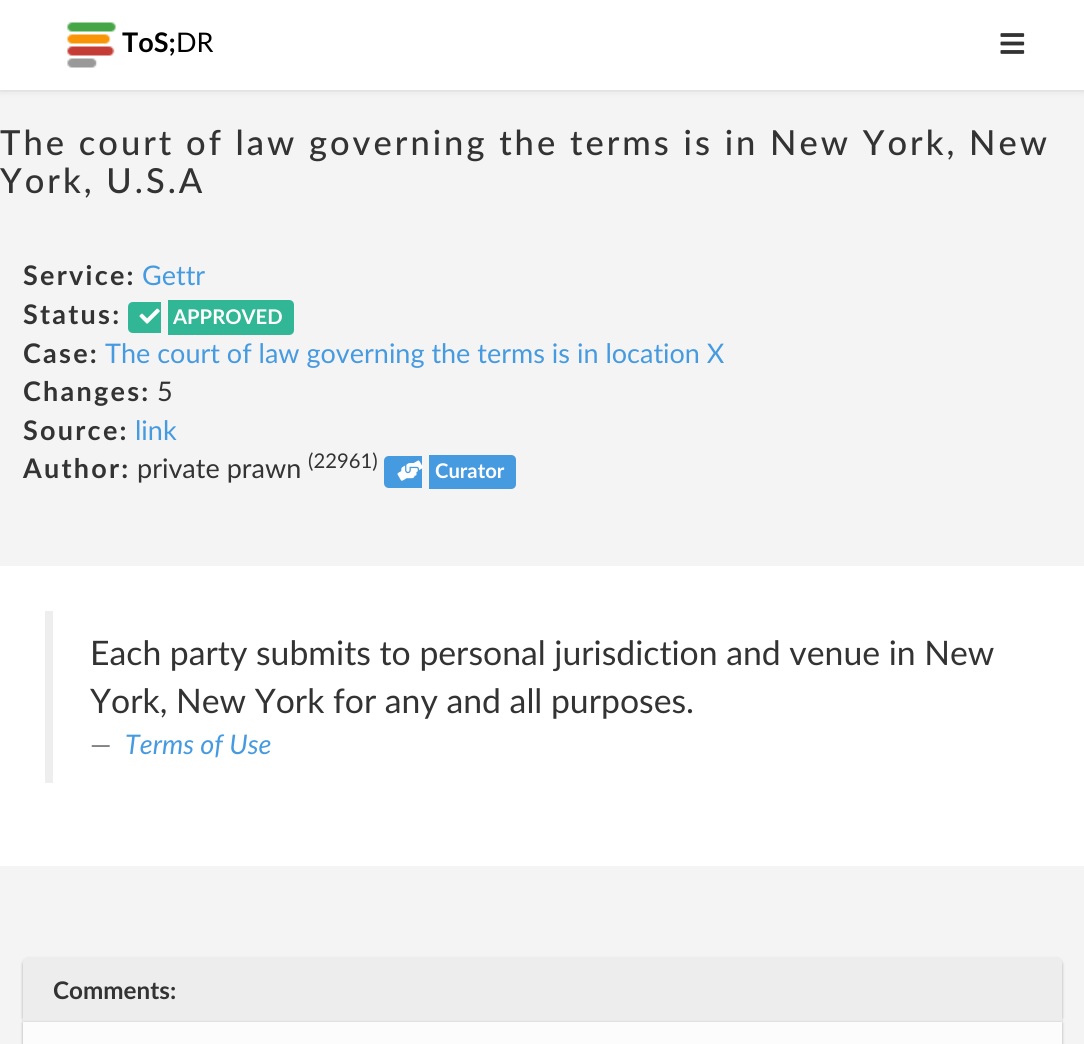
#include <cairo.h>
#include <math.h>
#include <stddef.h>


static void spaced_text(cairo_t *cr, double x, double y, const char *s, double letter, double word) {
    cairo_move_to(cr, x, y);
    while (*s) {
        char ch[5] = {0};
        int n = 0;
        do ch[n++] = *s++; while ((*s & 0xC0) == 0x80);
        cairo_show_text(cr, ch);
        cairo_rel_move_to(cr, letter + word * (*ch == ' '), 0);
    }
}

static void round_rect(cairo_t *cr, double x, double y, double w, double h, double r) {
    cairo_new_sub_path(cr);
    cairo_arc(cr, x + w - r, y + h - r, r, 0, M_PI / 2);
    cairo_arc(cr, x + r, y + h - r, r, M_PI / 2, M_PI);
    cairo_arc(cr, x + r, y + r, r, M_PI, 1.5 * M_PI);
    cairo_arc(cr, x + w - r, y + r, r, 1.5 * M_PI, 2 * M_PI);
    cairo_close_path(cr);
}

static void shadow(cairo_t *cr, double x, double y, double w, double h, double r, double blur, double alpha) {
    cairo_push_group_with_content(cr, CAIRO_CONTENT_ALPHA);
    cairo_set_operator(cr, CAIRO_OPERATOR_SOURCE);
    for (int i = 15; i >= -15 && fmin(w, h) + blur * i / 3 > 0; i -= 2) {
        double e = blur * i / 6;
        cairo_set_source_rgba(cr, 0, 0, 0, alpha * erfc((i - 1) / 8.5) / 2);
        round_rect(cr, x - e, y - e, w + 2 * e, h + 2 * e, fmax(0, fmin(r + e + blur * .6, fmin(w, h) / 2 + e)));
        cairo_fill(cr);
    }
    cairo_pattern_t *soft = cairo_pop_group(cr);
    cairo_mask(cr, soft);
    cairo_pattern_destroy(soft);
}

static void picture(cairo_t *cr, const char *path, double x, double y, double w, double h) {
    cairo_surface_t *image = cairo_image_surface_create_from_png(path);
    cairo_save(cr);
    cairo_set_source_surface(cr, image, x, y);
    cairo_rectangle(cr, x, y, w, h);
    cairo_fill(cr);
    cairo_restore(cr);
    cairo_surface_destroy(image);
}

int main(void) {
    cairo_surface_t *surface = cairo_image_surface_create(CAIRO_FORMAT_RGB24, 1084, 1044);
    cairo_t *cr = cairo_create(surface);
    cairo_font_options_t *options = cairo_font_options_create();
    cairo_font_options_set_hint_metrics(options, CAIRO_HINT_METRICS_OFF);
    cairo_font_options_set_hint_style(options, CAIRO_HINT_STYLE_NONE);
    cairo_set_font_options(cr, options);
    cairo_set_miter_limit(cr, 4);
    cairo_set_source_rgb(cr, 0.957, 0.957, 0.957);
    cairo_paint(cr);
    cairo_set_source_rgb(cr, 0.929, 0.929, 0.929);
    cairo_new_path(cr);
    cairo_move_to(cr, 0, 90);
    cairo_line_to(cr, 0, 92);
    cairo_line_to(cr, 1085, 92);
    cairo_line_to(cr, 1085, 2);
    cairo_line_to(cr, 1084, 2);
    cairo_line_to(cr, 1084, 90);
    cairo_close_path(cr);
    cairo_fill(cr);
    cairo_set_source_rgb(cr, 0, 0, 0);
    shadow(cr, 0, 2, 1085, 90, 0, 4, 0.07);
    cairo_set_source_rgb(cr, 1, 1, 1);
    cairo_rectangle(cr, 0, 0, 1084, 90);
    cairo_fill(cr);
    picture(cr, "img1.png", 67, 22, 49, 46);
    cairo_select_font_face(cr, "Lato", CAIRO_FONT_SLANT_NORMAL, CAIRO_FONT_WEIGHT_BOLD);
    cairo_set_font_size(cr, 27);
    cairo_set_source_rgb(cr, 0, 0, 0);
    cairo_move_to(cr, 122, 52);
    cairo_show_text(cr, "ToS;");
    cairo_select_font_face(cr, "Lato", CAIRO_FONT_SLANT_NORMAL, CAIRO_FONT_WEIGHT_NORMAL);
    cairo_move_to(cr, 176, 52);
    cairo_show_text(cr, "DR");
    picture(cr, "img2.png", 1000, 33, 25, 21);
    cairo_select_font_face(cr, "Lato Medium", CAIRO_FONT_SLANT_NORMAL, CAIRO_FONT_WEIGHT_NORMAL);
    cairo_set_font_size(cr, 34.5);
    cairo_set_source_rgb(cr, 0.2, 0.2, 0.2);
    spaced_text(cr, 0, 155, "The court of law governing the terms is in New York, New", 3, 0);
    spaced_text(cr, 0, 193, "York, U.S.A", 3, 0);
    cairo_select_font_face(cr, "Lato", CAIRO_FONT_SLANT_NORMAL, CAIRO_FONT_WEIGHT_BOLD);
    cairo_set_font_size(cr, 27);
    spaced_text(cr, 23, 285, "Service:", 2.25, 0);
    cairo_select_font_face(cr, "Lato", CAIRO_FONT_SLANT_NORMAL, CAIRO_FONT_WEIGHT_NORMAL);
    cairo_set_source_rgb(cr, 0.275, 0.604, 0.878);
    cairo_move_to(cr, 142, 285);
    cairo_show_text(cr, "Gettr");
    cairo_select_font_face(cr, "Lato", CAIRO_FONT_SLANT_NORMAL, CAIRO_FONT_WEIGHT_BOLD);
    cairo_set_source_rgb(cr, 0.2, 0.2, 0.2);
    spaced_text(cr, 23, 324, "Status:", 2.25, 0);
    cairo_set_source_rgb(cr, 0.196, 0.718, 0.588);
    cairo_new_path(cr);
    cairo_move_to(cr, 133, 302);
    cairo_line_to(cr, 161, 302);
    cairo_line_to(cr, 161, 333);
    cairo_line_to(cr, 133, 333);
    cairo_curve_to(cr, 130, 333, 128, 331, 128, 328);
    cairo_line_to(cr, 128, 307);
    cairo_curve_to(cr, 128, 304, 130, 302, 133, 302);
    cairo_close_path(cr);
    cairo_fill(cr);
    cairo_new_path(cr);
    cairo_move_to(cr, 168, 300);
    cairo_line_to(cr, 289, 300);
    cairo_curve_to(cr, 292, 300, 294, 302, 294, 305);
    cairo_line_to(cr, 294, 330);
    cairo_curve_to(cr, 294, 333, 292, 335, 289, 335);
    cairo_line_to(cr, 168, 335);
    cairo_close_path(cr);
    cairo_fill(cr);
    picture(cr, "img3.png", 139, 308, 21, 16);
    cairo_set_font_size(cr, 20.25);
    cairo_set_source_rgb(cr, 1, 1, 1);
    cairo_move_to(cr, 173, 324);
    cairo_show_text(cr, "APPROVED");
    cairo_set_font_size(cr, 27);
    cairo_set_source_rgb(cr, 0.2, 0.2, 0.2);
    spaced_text(cr, 23, 363, "Case:", 2.25, 0);
    cairo_select_font_face(cr, "Lato", CAIRO_FONT_SLANT_NORMAL, CAIRO_FONT_WEIGHT_NORMAL);
    cairo_set_source_rgb(cr, 0.275, 0.604, 0.878);
    cairo_move_to(cr, 105, 363);
    cairo_show_text(cr, "The court of law governing the terms is in location X");
    cairo_select_font_face(cr, "Lato", CAIRO_FONT_SLANT_NORMAL, CAIRO_FONT_WEIGHT_BOLD);
    cairo_set_source_rgb(cr, 0.2, 0.2, 0.2);
    spaced_text(cr, 23, 401, "Changes:", 2.25, 0);
    cairo_select_font_face(cr, "Lato", CAIRO_FONT_SLANT_NORMAL, CAIRO_FONT_WEIGHT_NORMAL);
    cairo_move_to(cr, 157, 401);
    cairo_show_text(cr, "5");
    cairo_select_font_face(cr, "Lato", CAIRO_FONT_SLANT_NORMAL, CAIRO_FONT_WEIGHT_BOLD);
    spaced_text(cr, 23, 440, "Source:", 2.25, 0);
    cairo_select_font_face(cr, "Lato", CAIRO_FONT_SLANT_NORMAL, CAIRO_FONT_WEIGHT_NORMAL);
    cairo_set_source_rgb(cr, 0.275, 0.604, 0.878);
    cairo_move_to(cr, 135, 440);
    cairo_show_text(cr, "link");
    cairo_select_font_face(cr, "Lato", CAIRO_FONT_SLANT_NORMAL, CAIRO_FONT_WEIGHT_BOLD);
    cairo_set_source_rgb(cr, 0.2, 0.2, 0.2);
    spaced_text(cr, 23, 478, "Author:", 2.25, 0);
    cairo_select_font_face(cr, "Lato", CAIRO_FONT_SLANT_NORMAL, CAIRO_FONT_WEIGHT_NORMAL);
    cairo_move_to(cr, 137, 478);
    cairo_show_text(cr, "private prawn");
    cairo_set_font_size(cr, 20.25);
    cairo_move_to(cr, 308, 468);
    cairo_show_text(cr, "(22961)");
    cairo_set_source_rgb(cr, 0.275, 0.604, 0.878);
    cairo_new_path(cr);
    cairo_move_to(cr, 389, 456);
    cairo_line_to(cr, 422, 456);
    cairo_line_to(cr, 422, 488);
    cairo_line_to(cr, 389, 488);
    cairo_curve_to(cr, 386, 488, 384, 486, 384, 483);
    cairo_line_to(cr, 384, 461);
    cairo_curve_to(cr, 384, 458, 386, 456, 389, 456);
    cairo_close_path(cr);
    cairo_fill(cr);
    cairo_new_path(cr);
    cairo_move_to(cr, 429, 455);
    cairo_line_to(cr, 511, 455);
    cairo_curve_to(cr, 514, 455, 516, 457, 516, 460);
    cairo_line_to(cr, 516, 484);
    cairo_curve_to(cr, 516, 487, 514, 489, 511, 489);
    cairo_line_to(cr, 429, 489);
    cairo_close_path(cr);
    cairo_fill(cr);
    picture(cr, "img4.png", 397, 460, 26, 21);
    cairo_select_font_face(cr, "Lato", CAIRO_FONT_SLANT_NORMAL, CAIRO_FONT_WEIGHT_BOLD);
    cairo_set_source_rgb(cr, 1, 1, 1);
    cairo_move_to(cr, 435, 478);
    cairo_show_text(cr, "Curator");
    cairo_rectangle(cr, 0, 566, 1084, 300);
    cairo_fill(cr);
    cairo_set_source_rgb(cr, 0.933, 0.933, 0.933);
    cairo_rectangle(cr, 45, 611, 8, 172);
    cairo_fill(cr);
    cairo_select_font_face(cr, "Lato", CAIRO_FONT_SLANT_NORMAL, CAIRO_FONT_WEIGHT_NORMAL);
    cairo_set_font_size(cr, 33.75);
    cairo_set_source_rgb(cr, 0.2, 0.2, 0.2);
    cairo_move_to(cr, 90, 665);
    cairo_show_text(cr, "Each party submits to personal jurisdiction and venue in New");
    cairo_move_to(cr, 90, 713);
    cairo_show_text(cr, "York, New York for any and all purposes.");
    cairo_set_font_size(cr, 27);
    cairo_set_source_rgb(cr, 0.467, 0.467, 0.467);
    cairo_move_to(cr, 90, 754);
    cairo_show_text(cr, "—");
    cairo_select_font_face(cr, "Lato", CAIRO_FONT_SLANT_ITALIC, CAIRO_FONT_WEIGHT_NORMAL);
    cairo_set_source_rgb(cr, 0.275, 0.604, 0.878);
    cairo_move_to(cr, 125, 754);
    cairo_show_text(cr, "Terms of Use");
    cairo_set_source_rgb(cr, 0, 0, 0);
    shadow(cr, 23, 959, 1039, 64, 6, 1.5, 0.3);
    cairo_set_source_rgb(cr, 0.929, 0.929, 0.929);
    cairo_new_path(cr);
    cairo_move_to(cr, 29, 957);
    cairo_line_to(cr, 1056, 957);
    cairo_curve_to(cr, 1059.5, 957, 1062, 959.5, 1062, 963);
    cairo_line_to(cr, 1062, 1022);
    cairo_line_to(cr, 23, 1022);
    cairo_line_to(cr, 23, 963);
    cairo_curve_to(cr, 23, 959.5, 25.5, 957, 29, 957);
    cairo_close_path(cr);
    cairo_fill(cr);
    cairo_select_font_face(cr, "Lato", CAIRO_FONT_SLANT_NORMAL, CAIRO_FONT_WEIGHT_BOLD);
    cairo_set_font_size(cr, 24.25);
    cairo_set_source_rgb(cr, 0.2, 0.2, 0.2);
    cairo_move_to(cr, 53, 999);
    cairo_show_text(cr, "Comments:");
    cairo_set_source_rgb(cr, 0, 0, 0);
    shadow(cr, 23, 1023, 1039, 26, 0, 1.5, 0.3);
    cairo_set_source_rgb(cr, 0.988, 0.988, 0.988);
    cairo_rectangle(cr, 23, 1022, 1039, 22);
    cairo_fill(cr);
    cairo_surface_write_to_png(surface, "page.png");
    cairo_font_options_destroy(options);
    cairo_destroy(cr);
    cairo_surface_destroy(surface);
    return 0;
}
